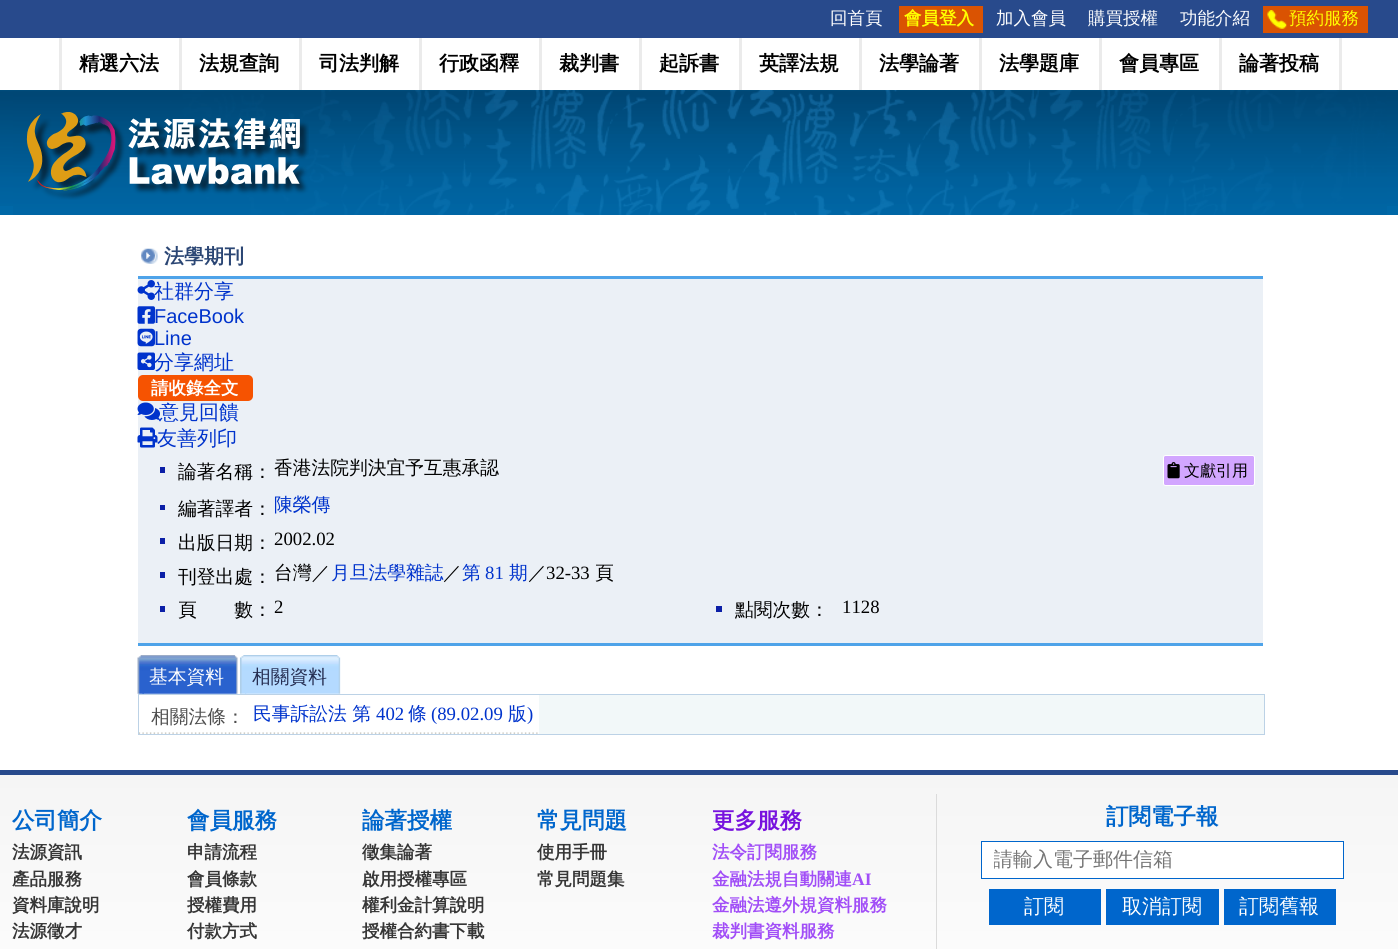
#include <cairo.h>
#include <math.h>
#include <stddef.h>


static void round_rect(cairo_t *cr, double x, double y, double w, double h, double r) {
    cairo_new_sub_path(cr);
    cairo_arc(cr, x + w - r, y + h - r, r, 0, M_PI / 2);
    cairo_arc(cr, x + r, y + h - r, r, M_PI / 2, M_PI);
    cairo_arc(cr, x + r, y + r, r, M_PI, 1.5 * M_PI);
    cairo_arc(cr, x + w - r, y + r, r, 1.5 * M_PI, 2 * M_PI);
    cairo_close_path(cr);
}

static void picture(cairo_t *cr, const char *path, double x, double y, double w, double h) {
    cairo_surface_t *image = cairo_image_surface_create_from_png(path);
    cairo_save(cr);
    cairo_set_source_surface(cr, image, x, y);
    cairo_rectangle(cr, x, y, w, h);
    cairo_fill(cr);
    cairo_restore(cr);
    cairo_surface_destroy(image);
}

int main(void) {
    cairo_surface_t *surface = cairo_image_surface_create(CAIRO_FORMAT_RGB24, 1398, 949);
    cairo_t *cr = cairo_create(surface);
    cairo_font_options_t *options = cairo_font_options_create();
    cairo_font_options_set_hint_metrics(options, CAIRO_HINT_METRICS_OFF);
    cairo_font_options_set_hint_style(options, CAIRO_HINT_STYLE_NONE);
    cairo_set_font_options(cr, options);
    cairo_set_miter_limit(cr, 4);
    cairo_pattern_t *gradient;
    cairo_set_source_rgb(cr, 1, 1, 1);
    cairo_paint(cr);
    cairo_set_source_rgb(cr, 0.157, 0.29, 0.549);
    cairo_rectangle(cr, 0, 0, 1398, 38);
    cairo_fill(cr);
    cairo_select_font_face(cr, "WenQuanYi Zen Hei Medium", CAIRO_FONT_SLANT_NORMAL, CAIRO_FONT_WEIGHT_NORMAL);
    cairo_set_font_size(cr, 17.5);
    cairo_set_source_rgb(cr, 1, 1, 1);
    cairo_move_to(cr, 830, 24);
    cairo_show_text(cr, "回首頁");
    cairo_set_source_rgb(cr, 0.855, 0.325, 0.008);
    cairo_rectangle(cr, 899, 6, 84, 27);
    cairo_fill(cr);
    cairo_select_font_face(cr, "WenQuanYi Zen Hei", CAIRO_FONT_SLANT_NORMAL, CAIRO_FONT_WEIGHT_BOLD);
    cairo_set_source_rgb(cr, 1, 1, 0);
    cairo_move_to(cr, 904, 24);
    cairo_show_text(cr, "會員登入");
    cairo_select_font_face(cr, "WenQuanYi Zen Hei Medium", CAIRO_FONT_SLANT_NORMAL, CAIRO_FONT_WEIGHT_NORMAL);
    cairo_set_source_rgb(cr, 1, 1, 1);
    cairo_move_to(cr, 996, 24);
    cairo_show_text(cr, "加入會員");
    cairo_move_to(cr, 1088, 24);
    cairo_show_text(cr, "購買授權");
    cairo_move_to(cr, 1180, 24);
    cairo_show_text(cr, "功能介紹");
    cairo_set_source_rgb(cr, 0.855, 0.325, 0.008);
    cairo_rectangle(cr, 1263, 6, 105, 27);
    cairo_fill(cr);
    picture(cr, "img1.png", 1267, 10, 20, 19);
    cairo_set_source_rgb(cr, 1, 1, 0);
    cairo_move_to(cr, 1289, 24);
    cairo_show_text(cr, "預約服務");
    cairo_set_source_rgb(cr, 0.918, 0.918, 0.918);
    cairo_rectangle(cr, 59, 38, 3, 52);
    cairo_fill(cr);
    cairo_select_font_face(cr, "WenQuanYi Zen Hei", CAIRO_FONT_SLANT_NORMAL, CAIRO_FONT_WEIGHT_BOLD);
    cairo_set_font_size(cr, 20);
    cairo_set_source_rgb(cr, 0, 0, 0);
    cairo_move_to(cr, 79, 70);
    cairo_show_text(cr, "精選六法");
    cairo_set_source_rgb(cr, 0.918, 0.918, 0.918);
    cairo_rectangle(cr, 179, 38, 3, 52);
    cairo_fill(cr);
    cairo_set_source_rgb(cr, 0, 0, 0);
    cairo_move_to(cr, 199, 70);
    cairo_show_text(cr, "法規查詢");
    cairo_set_source_rgb(cr, 0.918, 0.918, 0.918);
    cairo_rectangle(cr, 299, 38, 3, 52);
    cairo_fill(cr);
    cairo_set_source_rgb(cr, 0, 0, 0);
    cairo_move_to(cr, 319, 70);
    cairo_show_text(cr, "司法判解");
    cairo_set_source_rgb(cr, 0.918, 0.918, 0.918);
    cairo_rectangle(cr, 419, 38, 3, 52);
    cairo_fill(cr);
    cairo_set_source_rgb(cr, 0, 0, 0);
    cairo_move_to(cr, 439, 70);
    cairo_show_text(cr, "行政函釋");
    cairo_set_source_rgb(cr, 0.918, 0.918, 0.918);
    cairo_rectangle(cr, 539, 38, 3, 52);
    cairo_fill(cr);
    cairo_set_source_rgb(cr, 0, 0, 0);
    cairo_move_to(cr, 559, 70);
    cairo_show_text(cr, "裁判書");
    cairo_set_source_rgb(cr, 0.918, 0.918, 0.918);
    cairo_rectangle(cr, 639, 38, 3, 52);
    cairo_fill(cr);
    cairo_set_source_rgb(cr, 0, 0, 0);
    cairo_move_to(cr, 659, 70);
    cairo_show_text(cr, "起訴書");
    cairo_set_source_rgb(cr, 0.918, 0.918, 0.918);
    cairo_rectangle(cr, 739, 38, 3, 52);
    cairo_fill(cr);
    cairo_set_source_rgb(cr, 0, 0, 0);
    cairo_move_to(cr, 759, 70);
    cairo_show_text(cr, "英譯法規");
    cairo_set_source_rgb(cr, 0.918, 0.918, 0.918);
    cairo_rectangle(cr, 859, 38, 3, 52);
    cairo_fill(cr);
    cairo_set_source_rgb(cr, 0, 0, 0);
    cairo_move_to(cr, 879, 70);
    cairo_show_text(cr, "法學論著");
    cairo_set_source_rgb(cr, 0.918, 0.918, 0.918);
    cairo_rectangle(cr, 979, 38, 3, 52);
    cairo_fill(cr);
    cairo_set_source_rgb(cr, 0, 0, 0);
    cairo_move_to(cr, 999, 70);
    cairo_show_text(cr, "法學題庫");
    cairo_set_source_rgb(cr, 0.918, 0.918, 0.918);
    cairo_rectangle(cr, 1099, 38, 3, 52);
    cairo_fill(cr);
    cairo_set_source_rgb(cr, 0, 0, 0);
    cairo_move_to(cr, 1119, 70);
    cairo_show_text(cr, "會員專區");
    cairo_set_source_rgb(cr, 0.918, 0.918, 0.918);
    cairo_rectangle(cr, 1339, 38, 3, 52);
    cairo_fill(cr);
    cairo_rectangle(cr, 1219, 38, 3, 52);
    cairo_fill(cr);
    cairo_set_source_rgb(cr, 0, 0, 0);
    cairo_move_to(cr, 1239, 70);
    cairo_show_text(cr, "論著投稿");
    cairo_set_source_rgb(cr, 0, 0.408, 0.655);
    cairo_rectangle(cr, 0, 206, 1398, 9);
    cairo_fill(cr);
    picture(cr, "img2.png", 0, 90, 1398, 116);
    picture(cr, "img3.png", 13, 90, 1374, 125);
    picture(cr, "img4.png", 26, 112, 283, 88);
    picture(cr, "img5.png", 141, 248, 17, 16);
    cairo_set_source_rgb(cr, 0.169, 0.275, 0.455);
    cairo_move_to(cr, 164, 263);
    cairo_show_text(cr, "法學期刊");
    cairo_set_source_rgb(cr, 0.918, 0.941, 0.961);
    cairo_rectangle(cr, 138, 279, 1125, 364);
    cairo_fill(cr);
    cairo_set_source_rgb(cr, 0.306, 0.639, 0.914);
    cairo_rectangle(cr, 138, 276, 1125, 3);
    cairo_fill(cr);
    cairo_rectangle(cr, 138, 643, 1125, 3);
    cairo_fill(cr);
    picture(cr, "img6.png", 137, 280, 18, 20);
    cairo_select_font_face(cr, "WenQuanYi Zen Hei Medium", CAIRO_FONT_SLANT_NORMAL, CAIRO_FONT_WEIGHT_NORMAL);
    cairo_set_source_rgb(cr, 0, 0.2, 0.8);
    cairo_move_to(cr, 154, 298);
    cairo_show_text(cr, "社群分享");
    picture(cr, "img7.png", 137, 306, 18, 18);
    cairo_select_font_face(cr, "Liberation Sans", CAIRO_FONT_SLANT_NORMAL, CAIRO_FONT_WEIGHT_NORMAL);
    cairo_move_to(cr, 154, 323);
    cairo_show_text(cr, "FaceBook");
    picture(cr, "img8.png", 137, 328, 19, 19);
    cairo_move_to(cr, 154, 345);
    cairo_show_text(cr, "Line");
    picture(cr, "img9.png", 137, 352, 18, 18);
    cairo_select_font_face(cr, "WenQuanYi Zen Hei Medium", CAIRO_FONT_SLANT_NORMAL, CAIRO_FONT_WEIGHT_NORMAL);
    cairo_move_to(cr, 154, 369);
    cairo_show_text(cr, "分享網址");
    cairo_set_source_rgb(cr, 0.961, 0.325, 0.004);
    round_rect(cr, 138, 375, 115, 26, 5);
    cairo_fill(cr);
    cairo_select_font_face(cr, "WenQuanYi Zen Hei", CAIRO_FONT_SLANT_NORMAL, CAIRO_FONT_WEIGHT_BOLD);
    cairo_set_font_size(cr, 17.5);
    cairo_set_source_rgb(cr, 1, 1, 1);
    cairo_move_to(cr, 151, 394);
    cairo_show_text(cr, "請收錄全文");
    picture(cr, "img10.png", 137, 402, 23, 18);
    cairo_select_font_face(cr, "WenQuanYi Zen Hei Medium", CAIRO_FONT_SLANT_NORMAL, CAIRO_FONT_WEIGHT_NORMAL);
    cairo_set_font_size(cr, 20);
    cairo_set_source_rgb(cr, 0, 0.2, 0.8);
    cairo_move_to(cr, 159, 419);
    cairo_show_text(cr, "意見回饋");
    picture(cr, "img11.png", 137, 427, 21, 21);
    cairo_move_to(cr, 157, 445);
    cairo_show_text(cr, "友善列印");
    cairo_set_font_size(cr, 18.75);
    cairo_set_source_rgb(cr, 0, 0, 0);
    cairo_move_to(cr, 178, 478);
    cairo_show_text(cr, "論著名稱：");
    cairo_set_source_rgb(cr, 0.043, 0.122, 0.655);
    cairo_rectangle(cr, 160, 467, 5, 6);
    cairo_fill(cr);
    cairo_set_source_rgb(cr, 0, 0, 0);
    cairo_move_to(cr, 274, 474);
    cairo_show_text(cr, "香港法院判決宜予互惠承認");
    cairo_set_source_rgb(cr, 0.824, 0.651, 1);
    round_rect(cr, 1163.5, 455.5, 91, 30, 2);
    cairo_fill_preserve(cr);
    cairo_set_source_rgb(cr, 1, 1, 1);
    cairo_set_line_width(cr, 1);
    cairo_stroke(cr);
    picture(cr, "img12.png", 1167, 462, 13, 17);
    cairo_set_font_size(cr, 16);
    cairo_set_source_rgb(cr, 0, 0, 0);
    cairo_move_to(cr, 1184, 476);
    cairo_show_text(cr, "文獻引用");
    cairo_set_font_size(cr, 18.75);
    cairo_move_to(cr, 178, 515);
    cairo_show_text(cr, "編著譯者：");
    cairo_set_source_rgb(cr, 0.043, 0.122, 0.655);
    cairo_rectangle(cr, 160, 505, 5, 5);
    cairo_fill(cr);
    cairo_set_source_rgb(cr, 0, 0.2, 0.8);
    cairo_move_to(cr, 274, 511);
    cairo_show_text(cr, "陳榮傳");
    cairo_set_source_rgb(cr, 0, 0, 0);
    cairo_move_to(cr, 178, 549);
    cairo_show_text(cr, "出版日期：");
    cairo_set_source_rgb(cr, 0.043, 0.122, 0.655);
    cairo_rectangle(cr, 160, 538, 5, 6);
    cairo_fill(cr);
    cairo_select_font_face(cr, "Liberation Serif", CAIRO_FONT_SLANT_NORMAL, CAIRO_FONT_WEIGHT_NORMAL);
    cairo_set_source_rgb(cr, 0, 0, 0);
    cairo_move_to(cr, 274, 545);
    cairo_show_text(cr, "2002.02");
    cairo_select_font_face(cr, "WenQuanYi Zen Hei Medium", CAIRO_FONT_SLANT_NORMAL, CAIRO_FONT_WEIGHT_NORMAL);
    cairo_move_to(cr, 178, 583);
    cairo_show_text(cr, "刊登出處：");
    cairo_set_source_rgb(cr, 0.043, 0.122, 0.655);
    cairo_rectangle(cr, 160, 572, 5, 6);
    cairo_fill(cr);
    cairo_set_source_rgb(cr, 0, 0, 0);
    cairo_move_to(cr, 274, 579);
    cairo_show_text(cr, "台灣／");
    cairo_set_source_rgb(cr, 0, 0.2, 0.8);
    cairo_move_to(cr, 331, 579);
    cairo_show_text(cr, "月旦法學雜誌");
    cairo_set_source_rgb(cr, 0, 0, 0);
    cairo_move_to(cr, 443, 579);
    cairo_show_text(cr, "／");
    cairo_set_source_rgb(cr, 0, 0.2, 0.8);
    cairo_move_to(cr, 462, 579);
    cairo_show_text(cr, "第");
    cairo_select_font_face(cr, "Liberation Serif", CAIRO_FONT_SLANT_NORMAL, CAIRO_FONT_WEIGHT_NORMAL);
    cairo_move_to(cr, 485, 579);
    cairo_show_text(cr, "81");
    cairo_select_font_face(cr, "WenQuanYi Zen Hei Medium", CAIRO_FONT_SLANT_NORMAL, CAIRO_FONT_WEIGHT_NORMAL);
    cairo_move_to(cr, 509, 579);
    cairo_show_text(cr, "期");
    cairo_set_source_rgb(cr, 0, 0, 0);
    cairo_move_to(cr, 528, 579);
    cairo_show_text(cr, "／");
    cairo_select_font_face(cr, "Liberation Serif", CAIRO_FONT_SLANT_NORMAL, CAIRO_FONT_WEIGHT_NORMAL);
    cairo_move_to(cr, 546, 579);
    cairo_show_text(cr, "32-33");
    cairo_select_font_face(cr, "WenQuanYi Zen Hei Medium", CAIRO_FONT_SLANT_NORMAL, CAIRO_FONT_WEIGHT_NORMAL);
    cairo_move_to(cr, 595, 579);
    cairo_show_text(cr, "頁");
    cairo_move_to(cr, 178, 616);
    cairo_show_text(cr, "頁　　數：");
    cairo_set_source_rgb(cr, 0.043, 0.122, 0.655);
    cairo_rectangle(cr, 160, 606, 5, 6);
    cairo_fill(cr);
    cairo_select_font_face(cr, "Liberation Serif", CAIRO_FONT_SLANT_NORMAL, CAIRO_FONT_WEIGHT_NORMAL);
    cairo_set_source_rgb(cr, 0, 0, 0);
    cairo_move_to(cr, 274, 613);
    cairo_show_text(cr, "2");
    cairo_select_font_face(cr, "WenQuanYi Zen Hei Medium", CAIRO_FONT_SLANT_NORMAL, CAIRO_FONT_WEIGHT_NORMAL);
    cairo_move_to(cr, 735, 616);
    cairo_show_text(cr, "點閱次數：");
    cairo_set_source_rgb(cr, 0.043, 0.122, 0.655);
    cairo_rectangle(cr, 716, 606, 6, 6);
    cairo_fill(cr);
    cairo_select_font_face(cr, "Liberation Serif", CAIRO_FONT_SLANT_NORMAL, CAIRO_FONT_WEIGHT_NORMAL);
    cairo_set_source_rgb(cr, 0, 0, 0);
    cairo_move_to(cr, 842, 613);
    cairo_show_text(cr, "1128");
    picture(cr, "img13.png", 137, 655, 7, 39);
    picture(cr, "img14.png", 142, 655, 96, 39);
    cairo_select_font_face(cr, "WenQuanYi Zen Hei Medium", CAIRO_FONT_SLANT_NORMAL, CAIRO_FONT_WEIGHT_NORMAL);
    cairo_set_source_rgb(cr, 1, 1, 1);
    cairo_move_to(cr, 149, 683);
    cairo_show_text(cr, "基本資料");
    picture(cr, "img15.png", 240, 655, 7, 39);
    picture(cr, "img16.png", 245, 655, 96, 39);
    cairo_set_source_rgb(cr, 0.145, 0.176, 0.318);
    cairo_move_to(cr, 252, 683);
    cairo_show_text(cr, "相關資料");
    cairo_set_source_rgb(cr, 0.949, 0.969, 0.976);
    cairo_rectangle(cr, 539, 695, 725, 39);
    cairo_fill(cr);
    cairo_rectangle(cr, 138.5, 694.5, 1126, 40);
    cairo_set_source_rgb(cr, 0.737, 0.824, 0.902);
    cairo_stroke(cr);
    picture(cr, "img17.png", 139, 732, 109, 2);
    cairo_set_source_rgb(cr, 0.302, 0.302, 0.302);
    cairo_move_to(cr, 151, 723);
    cairo_show_text(cr, "相關法條：");
    picture(cr, "img18.png", 247, 732, 291, 2);
    cairo_set_source_rgb(cr, 0, 0.2, 0.8);
    cairo_move_to(cr, 253, 720);
    cairo_show_text(cr, "民事訴訟法 第");
    cairo_select_font_face(cr, "Liberation Serif", CAIRO_FONT_SLANT_NORMAL, CAIRO_FONT_WEIGHT_NORMAL);
    cairo_move_to(cr, 376, 720);
    cairo_show_text(cr, "402");
    cairo_select_font_face(cr, "WenQuanYi Zen Hei Medium", CAIRO_FONT_SLANT_NORMAL, CAIRO_FONT_WEIGHT_NORMAL);
    cairo_move_to(cr, 408, 720);
    cairo_show_text(cr, "條");
    cairo_select_font_face(cr, "Liberation Serif", CAIRO_FONT_SLANT_NORMAL, CAIRO_FONT_WEIGHT_NORMAL);
    cairo_move_to(cr, 431, 720);
    cairo_show_text(cr, "(89.02.09");
    cairo_select_font_face(cr, "WenQuanYi Zen Hei Medium", CAIRO_FONT_SLANT_NORMAL, CAIRO_FONT_WEIGHT_NORMAL);
    cairo_move_to(cr, 508, 720);
    cairo_show_text(cr, "版");
    cairo_select_font_face(cr, "Liberation Serif", CAIRO_FONT_SLANT_NORMAL, CAIRO_FONT_WEIGHT_NORMAL);
    cairo_move_to(cr, 527, 720);
    cairo_show_text(cr, ")");
    gradient = cairo_pattern_create_linear(699, 775, 699, 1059);
    cairo_pattern_add_color_stop_rgba(gradient, 0, 0.961, 0.961, 0.961, 1);
    cairo_pattern_add_color_stop_rgba(gradient, 1, 1, 1, 1, 1);
    cairo_set_source(cr, gradient);
    cairo_pattern_destroy(gradient);
    cairo_rectangle(cr, 0, 775, 1398, 174);
    cairo_fill(cr);
    cairo_set_source_rgb(cr, 0.157, 0.29, 0.549);
    cairo_rectangle(cr, 0, 770, 1398, 5);
    cairo_fill(cr);
    cairo_set_source_rgb(cr, 0.859, 0.859, 0.859);
    cairo_rectangle(cr, 936, 794, 1, 155);
    cairo_fill(cr);
    cairo_select_font_face(cr, "WenQuanYi Zen Hei", CAIRO_FONT_SLANT_NORMAL, CAIRO_FONT_WEIGHT_BOLD);
    cairo_set_font_size(cr, 22.5);
    cairo_set_source_rgb(cr, 0, 0.4, 0.8);
    cairo_move_to(cr, 12, 828);
    cairo_show_text(cr, "公司簡介");
    cairo_set_font_size(cr, 17.5);
    cairo_set_source_rgb(cr, 0.212, 0.212, 0.212);
    cairo_move_to(cr, 12, 858);
    cairo_show_text(cr, "法源資訊");
    cairo_move_to(cr, 12, 885);
    cairo_show_text(cr, "產品服務");
    cairo_move_to(cr, 12, 911);
    cairo_show_text(cr, "資料庫說明");
    cairo_move_to(cr, 12, 937);
    cairo_show_text(cr, "法源徵才");
    cairo_set_font_size(cr, 22.5);
    cairo_set_source_rgb(cr, 0, 0.4, 0.8);
    cairo_move_to(cr, 187, 828);
    cairo_show_text(cr, "會員服務");
    cairo_set_font_size(cr, 17.5);
    cairo_set_source_rgb(cr, 0.212, 0.212, 0.212);
    cairo_move_to(cr, 187, 858);
    cairo_show_text(cr, "申請流程");
    cairo_move_to(cr, 187, 885);
    cairo_show_text(cr, "會員條款");
    cairo_move_to(cr, 187, 911);
    cairo_show_text(cr, "授權費用");
    cairo_move_to(cr, 187, 937);
    cairo_show_text(cr, "付款方式");
    cairo_set_font_size(cr, 22.5);
    cairo_set_source_rgb(cr, 0, 0.4, 0.8);
    cairo_move_to(cr, 362, 828);
    cairo_show_text(cr, "論著授權");
    cairo_set_font_size(cr, 17.5);
    cairo_set_source_rgb(cr, 0.212, 0.212, 0.212);
    cairo_move_to(cr, 362, 858);
    cairo_show_text(cr, "徵集論著");
    cairo_move_to(cr, 362, 885);
    cairo_show_text(cr, "啟用授權專區");
    cairo_move_to(cr, 362, 911);
    cairo_show_text(cr, "權利金計算說明");
    cairo_move_to(cr, 362, 937);
    cairo_show_text(cr, "授權合約書下載");
    cairo_set_font_size(cr, 22.5);
    cairo_set_source_rgb(cr, 0, 0.4, 0.8);
    cairo_move_to(cr, 537, 828);
    cairo_show_text(cr, "常見問題");
    cairo_set_font_size(cr, 17.5);
    cairo_set_source_rgb(cr, 0.212, 0.212, 0.212);
    cairo_move_to(cr, 537, 858);
    cairo_show_text(cr, "使用手冊");
    cairo_move_to(cr, 537, 885);
    cairo_show_text(cr, "常見問題集");
    cairo_set_font_size(cr, 22.5);
    cairo_set_source_rgb(cr, 0.467, 0.071, 0.871);
    cairo_move_to(cr, 712, 828);
    cairo_show_text(cr, "更多服務");
    cairo_set_font_size(cr, 17.5);
    cairo_set_source_rgb(cr, 0.631, 0.306, 0.965);
    cairo_move_to(cr, 712, 858);
    cairo_show_text(cr, "法令訂閱服務");
    cairo_move_to(cr, 712, 885);
    cairo_show_text(cr, "金融法規自動關連");
    cairo_select_font_face(cr, "Liberation Serif", CAIRO_FONT_SLANT_NORMAL, CAIRO_FONT_WEIGHT_BOLD);
    cairo_move_to(cr, 852, 885);
    cairo_show_text(cr, "AI");
    cairo_select_font_face(cr, "WenQuanYi Zen Hei", CAIRO_FONT_SLANT_NORMAL, CAIRO_FONT_WEIGHT_BOLD);
    cairo_move_to(cr, 712, 911);
    cairo_show_text(cr, "金融法遵外規資料服務");
    cairo_move_to(cr, 712, 937);
    cairo_show_text(cr, "裁判書資料服務");
    cairo_set_font_size(cr, 22.5);
    cairo_set_source_rgb(cr, 0, 0.4, 0.8);
    cairo_move_to(cr, 1106, 824);
    cairo_show_text(cr, "訂閱電子報");
    cairo_set_source_rgb(cr, 1, 1, 1);
    cairo_rectangle(cr, 981.5, 841.5, 362, 37);
    cairo_fill_preserve(cr);
    cairo_set_source_rgb(cr, 0, 0.4, 0.8);
    cairo_stroke(cr);
    cairo_save(cr);
    cairo_rectangle(cr, 994, 848, 337, 26);
    cairo_clip(cr);
    cairo_select_font_face(cr, "WenQuanYi Zen Hei Medium", CAIRO_FONT_SLANT_NORMAL, CAIRO_FONT_WEIGHT_NORMAL);
    cairo_set_font_size(cr, 20);
    cairo_set_source_rgb(cr, 0.459, 0.459, 0.459);
    cairo_move_to(cr, 993, 866);
    cairo_show_text(cr, "請輸入電子郵件信箱");
    cairo_restore(cr);
    cairo_rectangle(cr, 989, 889, 112, 36);
    cairo_fill(cr);
    cairo_select_font_face(cr, "WenQuanYi Zen Hei Medium", CAIRO_FONT_SLANT_NORMAL, CAIRO_FONT_WEIGHT_NORMAL);
    cairo_set_font_size(cr, 20);
    cairo_set_source_rgb(cr, 1, 1, 1);
    cairo_move_to(cr, 1024, 913);
    cairo_show_text(cr, "訂閱");
    cairo_set_source_rgb(cr, 0, 0.4, 0.8);
    cairo_rectangle(cr, 1106, 889, 113, 36);
    cairo_fill(cr);
    cairo_set_source_rgb(cr, 1, 1, 1);
    cairo_move_to(cr, 1122, 913);
    cairo_show_text(cr, "取消訂閱");
    cairo_set_source_rgb(cr, 0, 0.4, 0.8);
    cairo_rectangle(cr, 1224, 889, 112, 36);
    cairo_fill(cr);
    cairo_set_source_rgb(cr, 1, 1, 1);
    cairo_move_to(cr, 1239, 913);
    cairo_show_text(cr, "訂閱舊報");
    cairo_surface_write_to_png(surface, "page.png");
    cairo_font_options_destroy(options);
    cairo_destroy(cr);
    cairo_surface_destroy(surface);
    return 0;
}
